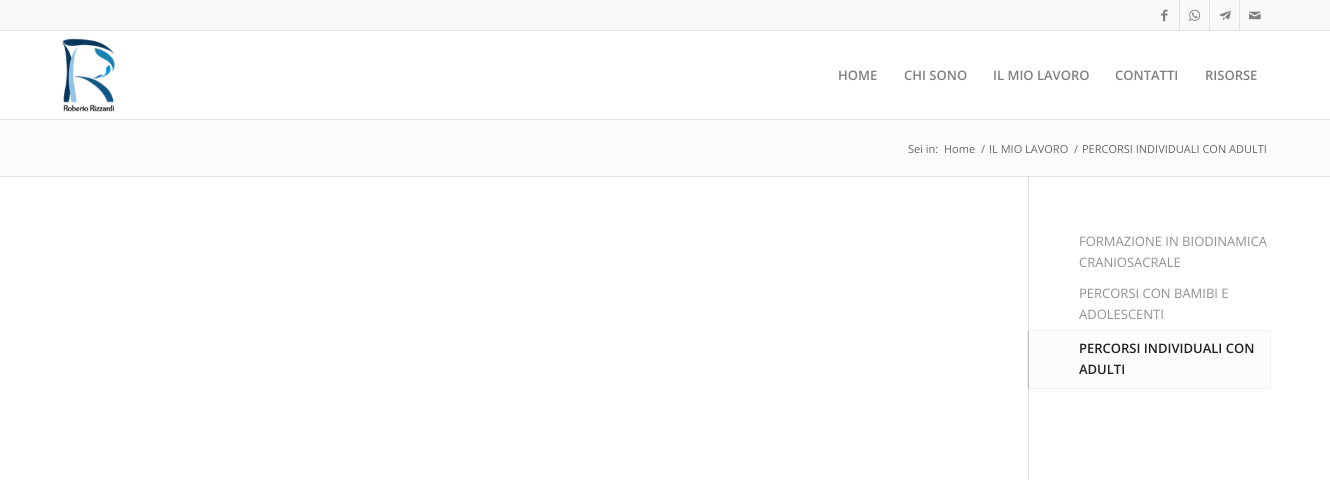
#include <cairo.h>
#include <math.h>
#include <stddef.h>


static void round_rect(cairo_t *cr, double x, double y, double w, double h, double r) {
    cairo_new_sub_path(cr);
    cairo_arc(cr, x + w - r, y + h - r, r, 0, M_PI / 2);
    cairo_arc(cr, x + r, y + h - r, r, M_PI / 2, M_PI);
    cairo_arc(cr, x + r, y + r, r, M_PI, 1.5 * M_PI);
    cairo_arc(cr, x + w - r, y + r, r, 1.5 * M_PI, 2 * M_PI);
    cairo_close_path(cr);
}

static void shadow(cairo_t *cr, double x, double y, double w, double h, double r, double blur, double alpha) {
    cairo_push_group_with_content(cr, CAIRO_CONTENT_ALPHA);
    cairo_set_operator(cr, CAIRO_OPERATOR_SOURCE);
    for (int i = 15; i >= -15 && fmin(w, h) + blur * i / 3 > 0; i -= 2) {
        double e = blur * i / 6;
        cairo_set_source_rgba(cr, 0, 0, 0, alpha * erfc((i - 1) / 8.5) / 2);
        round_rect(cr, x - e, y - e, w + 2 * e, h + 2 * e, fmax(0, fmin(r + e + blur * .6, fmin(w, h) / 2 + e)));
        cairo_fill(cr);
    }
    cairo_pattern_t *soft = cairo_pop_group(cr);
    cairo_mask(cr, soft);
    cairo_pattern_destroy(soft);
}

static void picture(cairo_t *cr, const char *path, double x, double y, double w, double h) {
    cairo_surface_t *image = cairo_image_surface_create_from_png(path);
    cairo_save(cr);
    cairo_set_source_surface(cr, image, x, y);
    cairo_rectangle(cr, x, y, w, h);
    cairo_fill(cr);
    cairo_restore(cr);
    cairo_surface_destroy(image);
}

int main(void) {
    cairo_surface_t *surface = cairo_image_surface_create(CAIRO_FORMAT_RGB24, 1330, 480);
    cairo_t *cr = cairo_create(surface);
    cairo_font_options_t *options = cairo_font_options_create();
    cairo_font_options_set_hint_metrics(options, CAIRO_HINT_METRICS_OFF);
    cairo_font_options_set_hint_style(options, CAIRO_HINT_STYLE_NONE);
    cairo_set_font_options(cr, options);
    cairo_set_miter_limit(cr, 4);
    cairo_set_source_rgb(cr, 1, 1, 1);
    cairo_paint(cr);
    cairo_set_source_rgb(cr, 0.973, 0.973, 0.973);
    cairo_rectangle(cr, 0, 0, 1330, 30);
    cairo_fill(cr);
    cairo_set_source_rgb(cr, 0.882, 0.882, 0.882);
    cairo_rectangle(cr, 0, 30, 1330, 1);
    cairo_fill(cr);
    cairo_rectangle(cr, 1179, 0, 1, 30);
    cairo_fill(cr);
    picture(cr, "img1.png", 1161, 9, 7, 13);
    cairo_rectangle(cr, 1209, 0, 1, 30);
    cairo_fill(cr);
    picture(cr, "img2.png", 1189, 9, 12, 12);
    cairo_rectangle(cr, 1239, 0, 1, 30);
    cairo_fill(cr);
    picture(cr, "img3.png", 1219, 10, 12, 11);
    picture(cr, "img4.png", 1249, 11, 12, 9);
    cairo_rectangle(cr, 0, 119, 1330, 1);
    cairo_fill(cr);
    picture(cr, "img5.png", 61, 38, 54, 74);
    cairo_select_font_face(cr, "Open Sans SemiBold", CAIRO_FONT_SLANT_NORMAL, CAIRO_FONT_WEIGHT_NORMAL);
    cairo_set_font_size(cr, 13);
    cairo_set_source_rgb(cr, 0.502, 0.502, 0.502);
    cairo_move_to(cr, 838, 80);
    cairo_show_text(cr, "HOME");
    cairo_move_to(cr, 904, 80);
    cairo_show_text(cr, "CHI SONO");
    cairo_move_to(cr, 993, 80);
    cairo_show_text(cr, "IL MIO LAVORO");
    cairo_move_to(cr, 1115, 80);
    cairo_show_text(cr, "CONTATTI");
    cairo_move_to(cr, 1205, 80);
    cairo_show_text(cr, "RISORSE");
    cairo_set_source_rgb(cr, 0.988, 0.988, 0.988);
    cairo_rectangle(cr, 0, 120, 1330, 56);
    cairo_fill(cr);
    cairo_select_font_face(cr, "Open Sans", CAIRO_FONT_SLANT_NORMAL, CAIRO_FONT_WEIGHT_NORMAL);
    cairo_set_font_size(cr, 11);
    cairo_set_source_rgb(cr, 0.4, 0.4, 0.4);
    cairo_move_to(cr, 908, 153);
    cairo_show_text(cr, "Sei in:");
    cairo_move_to(cr, 944, 153);
    cairo_show_text(cr, "Home");
    cairo_move_to(cr, 981, 153);
    cairo_show_text(cr, "/");
    cairo_move_to(cr, 989, 153);
    cairo_show_text(cr, "IL MIO LAVORO");
    cairo_move_to(cr, 1074, 153);
    cairo_show_text(cr, "/");
    cairo_move_to(cr, 1082, 153);
    cairo_show_text(cr, "PERCORSI INDIVIDUALI CON ADULTI");
    cairo_set_source_rgb(cr, 0.882, 0.882, 0.882);
    cairo_rectangle(cr, 0, 176, 1330, 1);
    cairo_fill(cr);
    cairo_rectangle(cr, 1028, 177, 1, 303);
    cairo_fill(cr);
    cairo_set_font_size(cr, 13);
    cairo_set_source_rgb(cr, 0.569, 0.569, 0.569);
    cairo_move_to(cr, 1079, 246);
    cairo_show_text(cr, "FORMAZIONE IN BIODINAMICA");
    cairo_move_to(cr, 1079, 267);
    cairo_show_text(cr, "CRANIOSACRALE");
    cairo_move_to(cr, 1079, 298);
    cairo_show_text(cr, "PERCORSI CON BAMIBI E");
    cairo_move_to(cr, 1079, 319);
    cairo_show_text(cr, "ADOLESCENTI");
    cairo_set_source_rgb(cr, 0, 0, 0);
    shadow(cr, 1028, 331, 242, 57, 0, 0.5, 0.2);
    cairo_set_source_rgb(cr, 0.988, 0.988, 0.988);
    cairo_rectangle(cr, 1029, 331, 241, 57);
    cairo_fill(cr);
    cairo_select_font_face(cr, "Open Sans SemiBold", CAIRO_FONT_SLANT_NORMAL, CAIRO_FONT_WEIGHT_NORMAL);
    cairo_set_source_rgb(cr, 0.133, 0.133, 0.133);
    cairo_move_to(cr, 1079, 353);
    cairo_show_text(cr, "PERCORSI INDIVIDUALI CON");
    cairo_move_to(cr, 1079, 374);
    cairo_show_text(cr, "ADULTI");
    cairo_surface_write_to_png(surface, "page.png");
    cairo_font_options_destroy(options);
    cairo_destroy(cr);
    cairo_surface_destroy(surface);
    return 0;
}
